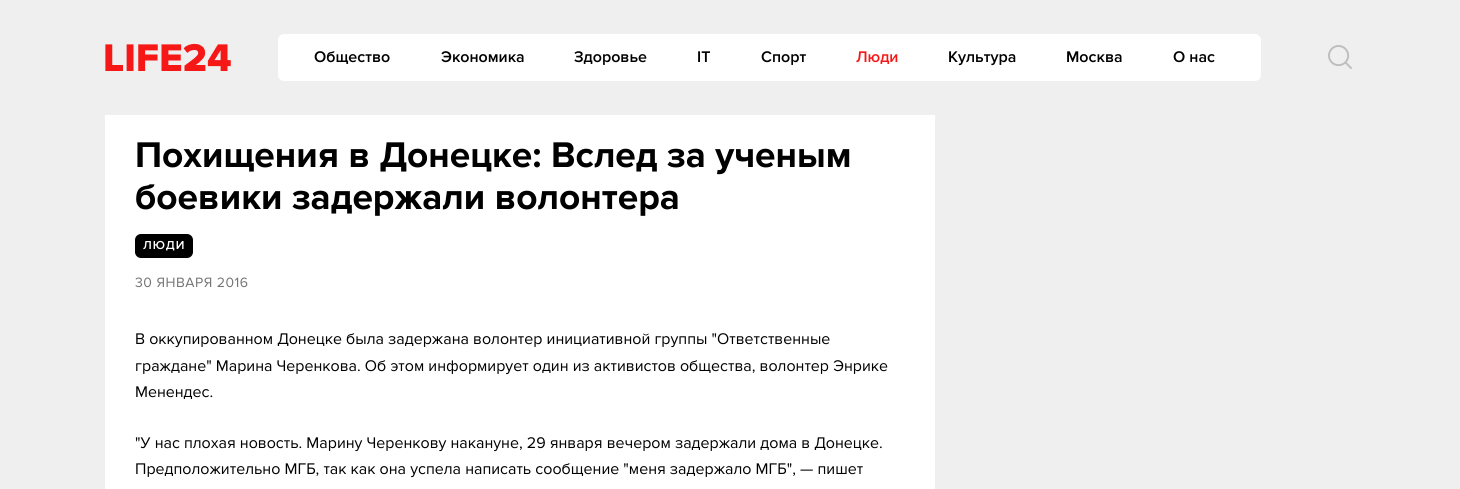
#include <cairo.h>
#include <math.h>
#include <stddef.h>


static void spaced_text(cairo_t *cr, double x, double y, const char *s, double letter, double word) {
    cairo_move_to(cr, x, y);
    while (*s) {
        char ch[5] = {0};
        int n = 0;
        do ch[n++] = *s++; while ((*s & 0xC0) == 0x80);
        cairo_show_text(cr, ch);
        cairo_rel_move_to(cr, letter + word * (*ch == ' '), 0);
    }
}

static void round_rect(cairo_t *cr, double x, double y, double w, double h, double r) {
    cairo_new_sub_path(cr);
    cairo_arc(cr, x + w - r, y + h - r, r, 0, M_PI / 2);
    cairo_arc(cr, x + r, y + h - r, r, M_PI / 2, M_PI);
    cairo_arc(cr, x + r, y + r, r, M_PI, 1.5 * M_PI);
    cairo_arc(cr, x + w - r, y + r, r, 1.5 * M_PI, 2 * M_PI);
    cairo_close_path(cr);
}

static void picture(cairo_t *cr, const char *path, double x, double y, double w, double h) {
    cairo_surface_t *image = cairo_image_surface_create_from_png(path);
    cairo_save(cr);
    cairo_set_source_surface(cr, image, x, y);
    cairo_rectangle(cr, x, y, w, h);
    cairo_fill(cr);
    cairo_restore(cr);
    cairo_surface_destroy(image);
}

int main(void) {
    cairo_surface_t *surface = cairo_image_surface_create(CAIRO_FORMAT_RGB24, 1460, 489);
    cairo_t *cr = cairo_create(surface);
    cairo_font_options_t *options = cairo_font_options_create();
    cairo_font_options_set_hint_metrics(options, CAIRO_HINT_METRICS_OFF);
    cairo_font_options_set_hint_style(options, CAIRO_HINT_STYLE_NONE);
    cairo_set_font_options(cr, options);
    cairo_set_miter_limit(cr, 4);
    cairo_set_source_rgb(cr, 0.937, 0.937, 0.937);
    cairo_paint(cr);
    picture(cr, "img1.png", 105, 43, 126, 28);
    cairo_set_source_rgb(cr, 1, 1, 1);
    round_rect(cr, 278, 34, 983, 47, 6);
    cairo_fill(cr);
    cairo_select_font_face(cr, "Proxima Nova SemiBold", CAIRO_FONT_SLANT_NORMAL, CAIRO_FONT_WEIGHT_NORMAL);
    cairo_set_font_size(cr, 16);
    cairo_set_source_rgb(cr, 0, 0, 0);
    cairo_move_to(cr, 314, 62);
    cairo_show_text(cr, "Общество");
    cairo_move_to(cr, 441, 62);
    cairo_show_text(cr, "Экономика");
    cairo_move_to(cr, 574, 62);
    cairo_show_text(cr, "Здоровье");
    cairo_move_to(cr, 697, 62);
    cairo_show_text(cr, "IT");
    cairo_move_to(cr, 761, 62);
    cairo_show_text(cr, "Спорт");
    cairo_set_source_rgb(cr, 0.965, 0.09, 0.09);
    cairo_move_to(cr, 856, 62);
    cairo_show_text(cr, "Люди");
    cairo_set_source_rgb(cr, 0, 0, 0);
    cairo_move_to(cr, 948, 62);
    cairo_show_text(cr, "Культура");
    cairo_move_to(cr, 1066, 62);
    cairo_show_text(cr, "Москва");
    cairo_move_to(cr, 1173, 62);
    cairo_show_text(cr, "О нас");
    picture(cr, "img2.png", 1328, 45, 24, 24);
    cairo_set_source_rgb(cr, 1, 1, 1);
    cairo_rectangle(cr, 105, 115, 830, 374);
    cairo_fill(cr);
    cairo_select_font_face(cr, "Proxima Nova", CAIRO_FONT_SLANT_NORMAL, CAIRO_FONT_WEIGHT_BOLD);
    cairo_set_font_size(cr, 37);
    cairo_set_source_rgb(cr, 0, 0, 0);
    cairo_move_to(cr, 135, 167);
    cairo_show_text(cr, "Похищения в Донецке: Вслед за ученым");
    cairo_move_to(cr, 135, 209);
    cairo_show_text(cr, "боевики задержали волонтера");
    round_rect(cr, 135, 234, 58, 24, 6);
    cairo_fill(cr);
    cairo_select_font_face(cr, "Proxima Nova SemiBold", CAIRO_FONT_SLANT_NORMAL, CAIRO_FONT_WEIGHT_NORMAL);
    cairo_set_font_size(cr, 12);
    cairo_set_source_rgb(cr, 1, 1, 1);
    spaced_text(cr, 143, 249, "ЛЮДИ", 1, 0);
    cairo_select_font_face(cr, "Proxima Nova", CAIRO_FONT_SLANT_NORMAL, CAIRO_FONT_WEIGHT_NORMAL);
    cairo_set_font_size(cr, 14);
    cairo_set_source_rgb(cr, 0.455, 0.455, 0.455);
    spaced_text(cr, 135, 287, "30 ЯНВАРЯ 2016", 0.5, 0);
    cairo_set_font_size(cr, 16);
    cairo_set_source_rgb(cr, 0, 0, 0);
    cairo_move_to(cr, 135, 344);
    cairo_show_text(cr, "В оккупированном Донецке была задержана волонтер инициативной группы \"Ответственные");
    cairo_move_to(cr, 135, 371);
    cairo_show_text(cr, "граждане\" Марина Черенкова. Об этом информирует один из активистов общества, волонтер Энрике");
    cairo_move_to(cr, 135, 397);
    cairo_show_text(cr, "Менендес.");
    cairo_move_to(cr, 135, 448);
    cairo_show_text(cr, "\"У нас плохая новость. Марину Черенкову накануне, 29 января вечером задержали дома в Донецке.");
    cairo_move_to(cr, 135, 474);
    cairo_show_text(cr, "Предположительно МГБ, так как она успела написать сообщение \"меня задержало МГБ\", — пишет");
    cairo_surface_write_to_png(surface, "page.png");
    cairo_font_options_destroy(options);
    cairo_destroy(cr);
    cairo_surface_destroy(surface);
    return 0;
}
